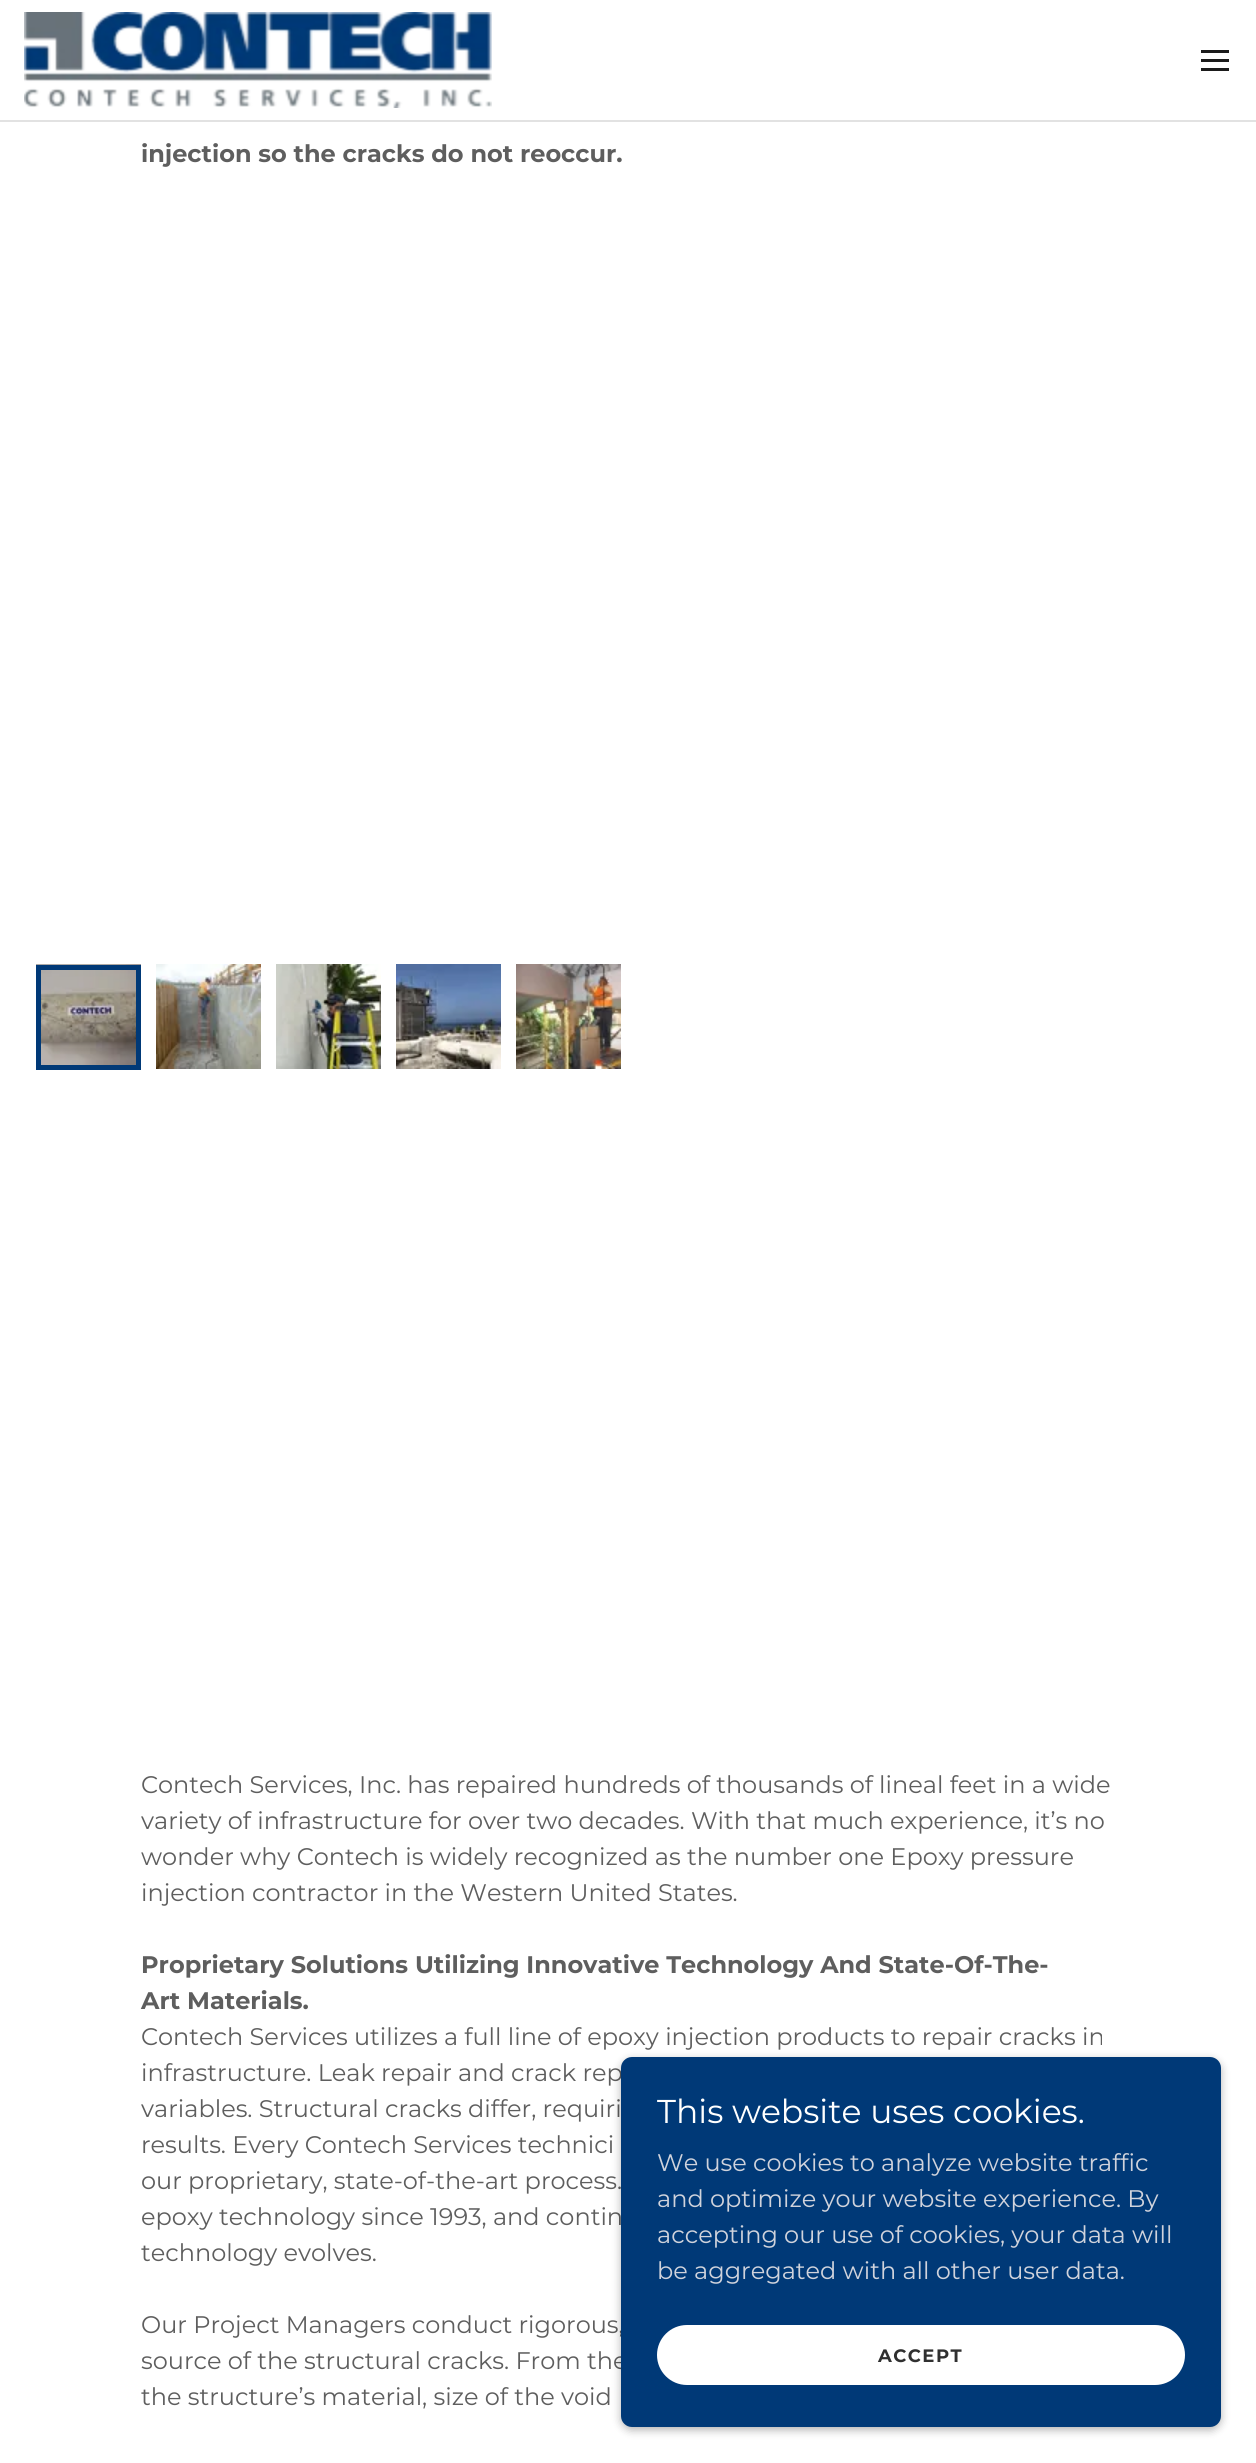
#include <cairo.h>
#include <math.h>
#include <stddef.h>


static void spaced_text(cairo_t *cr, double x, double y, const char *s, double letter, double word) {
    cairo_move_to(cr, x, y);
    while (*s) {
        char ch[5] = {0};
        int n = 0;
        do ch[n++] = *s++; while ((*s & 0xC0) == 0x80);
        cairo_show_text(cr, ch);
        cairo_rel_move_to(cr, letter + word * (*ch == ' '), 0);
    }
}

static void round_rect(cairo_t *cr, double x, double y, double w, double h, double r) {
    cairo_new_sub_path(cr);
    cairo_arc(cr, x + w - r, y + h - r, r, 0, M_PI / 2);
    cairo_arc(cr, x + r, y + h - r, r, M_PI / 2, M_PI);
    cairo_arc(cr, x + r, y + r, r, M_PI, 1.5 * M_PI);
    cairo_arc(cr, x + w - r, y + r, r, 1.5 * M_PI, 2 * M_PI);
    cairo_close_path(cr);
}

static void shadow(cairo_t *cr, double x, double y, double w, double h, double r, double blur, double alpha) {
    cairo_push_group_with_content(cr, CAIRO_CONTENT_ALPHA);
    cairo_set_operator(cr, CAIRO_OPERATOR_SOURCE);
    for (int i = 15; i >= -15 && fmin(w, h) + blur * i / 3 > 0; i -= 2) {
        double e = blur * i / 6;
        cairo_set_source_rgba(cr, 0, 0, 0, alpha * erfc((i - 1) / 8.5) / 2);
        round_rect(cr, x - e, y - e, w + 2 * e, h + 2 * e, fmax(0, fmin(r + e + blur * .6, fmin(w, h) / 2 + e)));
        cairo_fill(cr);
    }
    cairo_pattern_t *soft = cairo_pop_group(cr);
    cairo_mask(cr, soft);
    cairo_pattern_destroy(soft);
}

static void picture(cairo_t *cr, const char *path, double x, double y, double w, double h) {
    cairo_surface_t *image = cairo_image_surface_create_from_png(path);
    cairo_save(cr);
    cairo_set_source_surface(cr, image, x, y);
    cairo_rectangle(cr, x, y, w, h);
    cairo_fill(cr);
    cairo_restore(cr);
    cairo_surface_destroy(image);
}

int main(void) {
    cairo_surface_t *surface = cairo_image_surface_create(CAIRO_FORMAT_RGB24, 1256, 2463);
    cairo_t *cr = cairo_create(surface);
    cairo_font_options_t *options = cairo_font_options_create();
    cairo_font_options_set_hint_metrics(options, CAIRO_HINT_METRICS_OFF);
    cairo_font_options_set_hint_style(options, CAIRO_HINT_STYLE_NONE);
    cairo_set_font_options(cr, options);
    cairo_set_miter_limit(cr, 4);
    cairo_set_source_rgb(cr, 1, 1, 1);
    cairo_paint(cr);
    picture(cr, "img1.png", 24, 12, 468, 96);
    cairo_set_source_rgb(cr, 0.106, 0.106, 0.106);
    cairo_rectangle(cr, 1201, 50, 28, 3);
    cairo_fill(cr);
    cairo_rectangle(cr, 1201, 59, 28, 3);
    cairo_fill(cr);
    cairo_rectangle(cr, 1201, 68, 28, 3);
    cairo_fill(cr);
    cairo_set_source_rgb(cr, 0.886, 0.886, 0.886);
    cairo_rectangle(cr, 0, 120, 1256, 2);
    cairo_fill(cr);
    cairo_select_font_face(cr, "Montserrat", CAIRO_FONT_SLANT_NORMAL, CAIRO_FONT_WEIGHT_BOLD);
    cairo_set_font_size(cr, 24);
    cairo_set_source_rgb(cr, 0.369, 0.369, 0.369);
    cairo_move_to(cr, 141, 162);
    cairo_show_text(cr, "injection so the cracks do not reoccur.");
    picture(cr, "img2.png", 36, 964, 105, 101);
    cairo_rectangle(cr, 38.5, 967.5, 100, 100);
    cairo_set_source_rgb(cr, 0, 0.224, 0.467);
    cairo_set_line_width(cr, 5);
    cairo_stroke(cr);
    picture(cr, "img3.png", 156, 964, 105, 105);
    picture(cr, "img4.png", 276, 964, 105, 105);
    picture(cr, "img5.png", 396, 964, 105, 105);
    picture(cr, "img6.png", 516, 964, 105, 105);
    cairo_select_font_face(cr, "Montserrat", CAIRO_FONT_SLANT_NORMAL, CAIRO_FONT_WEIGHT_NORMAL);
    cairo_set_source_rgb(cr, 0.369, 0.369, 0.369);
    cairo_move_to(cr, 141, 1793);
    cairo_show_text(cr, "Contech Services, Inc. has repaired hundreds of thousands of lineal feet in a wide");
    cairo_move_to(cr, 141, 1829);
    cairo_show_text(cr, "variety of infrastructure for over two decades. With that much experience, it’s no");
    cairo_move_to(cr, 141, 1865);
    cairo_show_text(cr, "wonder why Contech is widely recognized as the number one Epoxy pressure");
    cairo_move_to(cr, 141, 1901);
    cairo_show_text(cr, "injection contractor in the Western United States.");
    cairo_select_font_face(cr, "Montserrat", CAIRO_FONT_SLANT_NORMAL, CAIRO_FONT_WEIGHT_BOLD);
    cairo_move_to(cr, 141, 1973);
    cairo_show_text(cr, "Proprietary Solutions Utilizing Innovative Technology And State-Of-The-");
    cairo_move_to(cr, 141, 2009);
    cairo_show_text(cr, "Art Materials.");
    cairo_select_font_face(cr, "Montserrat", CAIRO_FONT_SLANT_NORMAL, CAIRO_FONT_WEIGHT_NORMAL);
    cairo_move_to(cr, 141, 2045);
    cairo_show_text(cr, "Contech Services utilizes a full line of epoxy injection products to repair cracks in");
    cairo_move_to(cr, 141, 2081);
    cairo_show_text(cr, "infrastructure. Leak repair and crack rep");
    cairo_move_to(cr, 141, 2117);
    cairo_show_text(cr, "variables. Structural cracks differ, requiri");
    cairo_move_to(cr, 141, 2153);
    cairo_show_text(cr, "results. Every Contech Services technici");
    cairo_move_to(cr, 141, 2189);
    cairo_show_text(cr, "our proprietary, state-of-the-art process.");
    cairo_move_to(cr, 141, 2225);
    cairo_show_text(cr, "epoxy technology since 1993, and contin");
    cairo_move_to(cr, 141, 2261);
    cairo_show_text(cr, "technology evolves.");
    cairo_move_to(cr, 141, 2333);
    cairo_show_text(cr, "Our Project Managers conduct rigorous,");
    cairo_move_to(cr, 141, 2369);
    cairo_show_text(cr, "source of the structural cracks. From the");
    cairo_move_to(cr, 141, 2405);
    cairo_show_text(cr, "the structure’s material, size of the void");
    cairo_set_source_rgb(cr, 0, 0, 0);
    shadow(cr, 621, 2060, 600, 370, 11, 4.5, 0.3);
    cairo_set_source_rgb(cr, 0, 0.224, 0.467);
    round_rect(cr, 621, 2057, 600, 370, 11);
    cairo_fill(cr);
    cairo_set_font_size(cr, 33);
    cairo_set_source_rgb(cr, 1, 1, 1);
    cairo_move_to(cr, 657, 2123);
    cairo_show_text(cr, "This website uses cookies.");
    cairo_set_font_size(cr, 24);
    cairo_set_source_rgb(cr, 0.816, 0.827, 0.863);
    cairo_move_to(cr, 657, 2171);
    cairo_show_text(cr, "We use cookies to analyze website traffic");
    cairo_move_to(cr, 657, 2207);
    cairo_show_text(cr, "and optimize your website experience. By");
    cairo_move_to(cr, 657, 2243);
    cairo_show_text(cr, "accepting our use of cookies, your data will");
    cairo_move_to(cr, 657, 2279);
    cairo_show_text(cr, "be aggregated with all other user data.");
    cairo_set_source_rgb(cr, 1, 1, 1);
    round_rect(cr, 657, 2325, 528, 60, 30);
    cairo_fill(cr);
    cairo_select_font_face(cr, "Montserrat", CAIRO_FONT_SLANT_NORMAL, CAIRO_FONT_WEIGHT_BOLD);
    cairo_set_font_size(cr, 18);
    cairo_set_source_rgb(cr, 0.188, 0.188, 0.188);
    spaced_text(cr, 878, 2362, "ACCEPT", 1.5, 0);
    cairo_surface_write_to_png(surface, "page.png");
    cairo_font_options_destroy(options);
    cairo_destroy(cr);
    cairo_surface_destroy(surface);
    return 0;
}
